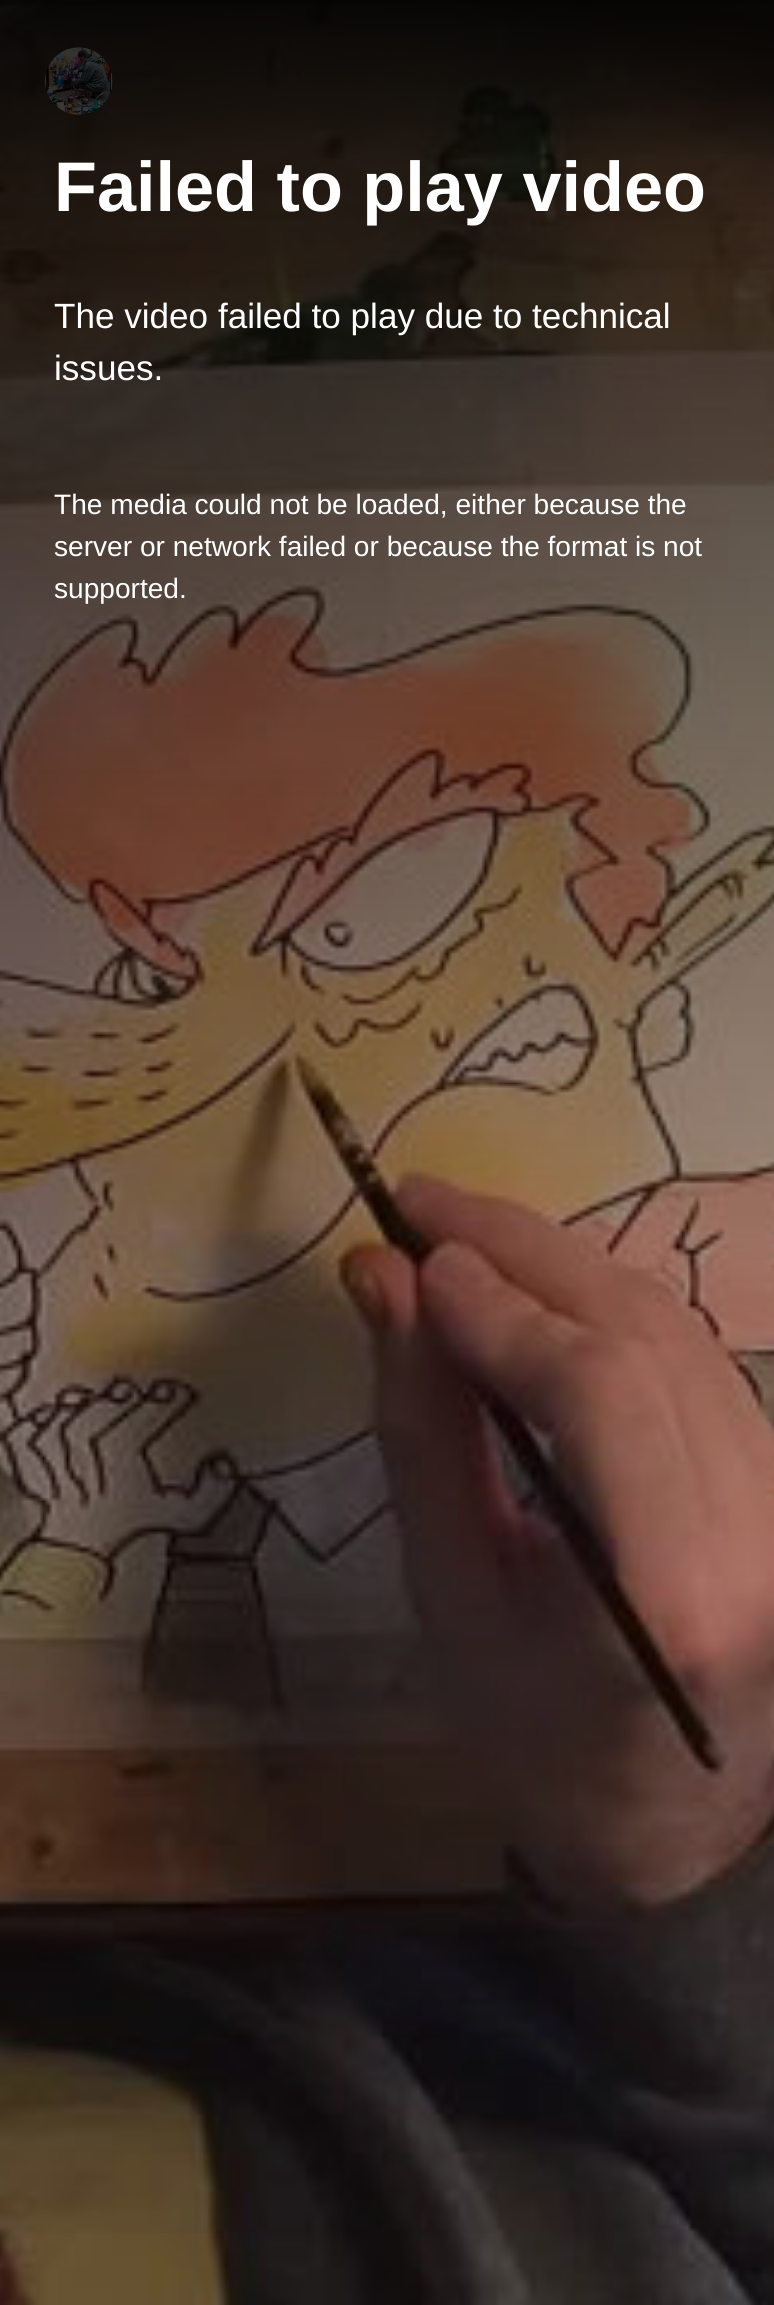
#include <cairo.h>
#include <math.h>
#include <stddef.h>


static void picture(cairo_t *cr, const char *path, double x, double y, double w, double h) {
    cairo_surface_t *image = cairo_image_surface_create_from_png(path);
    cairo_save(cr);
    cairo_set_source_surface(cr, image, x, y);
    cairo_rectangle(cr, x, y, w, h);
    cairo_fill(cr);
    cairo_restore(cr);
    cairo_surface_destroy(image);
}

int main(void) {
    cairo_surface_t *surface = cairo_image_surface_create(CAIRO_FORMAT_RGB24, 774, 2305);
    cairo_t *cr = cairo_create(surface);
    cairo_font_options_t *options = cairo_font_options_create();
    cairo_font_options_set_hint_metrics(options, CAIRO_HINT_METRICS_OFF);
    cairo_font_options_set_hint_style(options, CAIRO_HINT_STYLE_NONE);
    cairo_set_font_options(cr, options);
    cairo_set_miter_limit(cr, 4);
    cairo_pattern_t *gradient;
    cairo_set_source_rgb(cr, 1, 1, 1);
    cairo_paint(cr);
    picture(cr, "img1.png", 0, 0, 774, 2305);
    picture(cr, "img2.png", 45, 47, 68, 68);
    gradient = cairo_pattern_create_linear(387, 0, 387, 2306);
    cairo_pattern_add_color_stop_rgba(gradient, 0, 0, 0, 0, 0.8);
    cairo_pattern_add_color_stop_rgba(gradient, 1, 0, 0, 0, 0);
    cairo_set_source(cr, gradient);
    cairo_pattern_destroy(gradient);
    cairo_rectangle(cr, 0, 0, 774, 2233);
    cairo_fill(cr);
    cairo_select_font_face(cr, "Liberation Sans", CAIRO_FONT_SLANT_NORMAL, CAIRO_FONT_WEIGHT_BOLD);
    cairo_set_font_size(cr, 70.25);
    cairo_set_source_rgb(cr, 1, 1, 1);
    cairo_move_to(cr, 54, 211);
    cairo_show_text(cr, "Failed to play video");
    cairo_select_font_face(cr, "Liberation Sans", CAIRO_FONT_SLANT_NORMAL, CAIRO_FONT_WEIGHT_NORMAL);
    cairo_set_font_size(cr, 35.1);
    cairo_move_to(cr, 54, 328);
    cairo_show_text(cr, "The video failed to play due to technical");
    cairo_move_to(cr, 54, 380);
    cairo_show_text(cr, "issues.");
    cairo_set_font_size(cr, 28.1);
    cairo_move_to(cr, 54, 514);
    cairo_show_text(cr, "The media could not be loaded, either because the");
    cairo_move_to(cr, 54, 556);
    cairo_show_text(cr, "server or network failed or because the format is not");
    cairo_move_to(cr, 54, 598);
    cairo_show_text(cr, "supported.");
    cairo_surface_write_to_png(surface, "page.png");
    cairo_font_options_destroy(options);
    cairo_destroy(cr);
    cairo_surface_destroy(surface);
    return 0;
}
